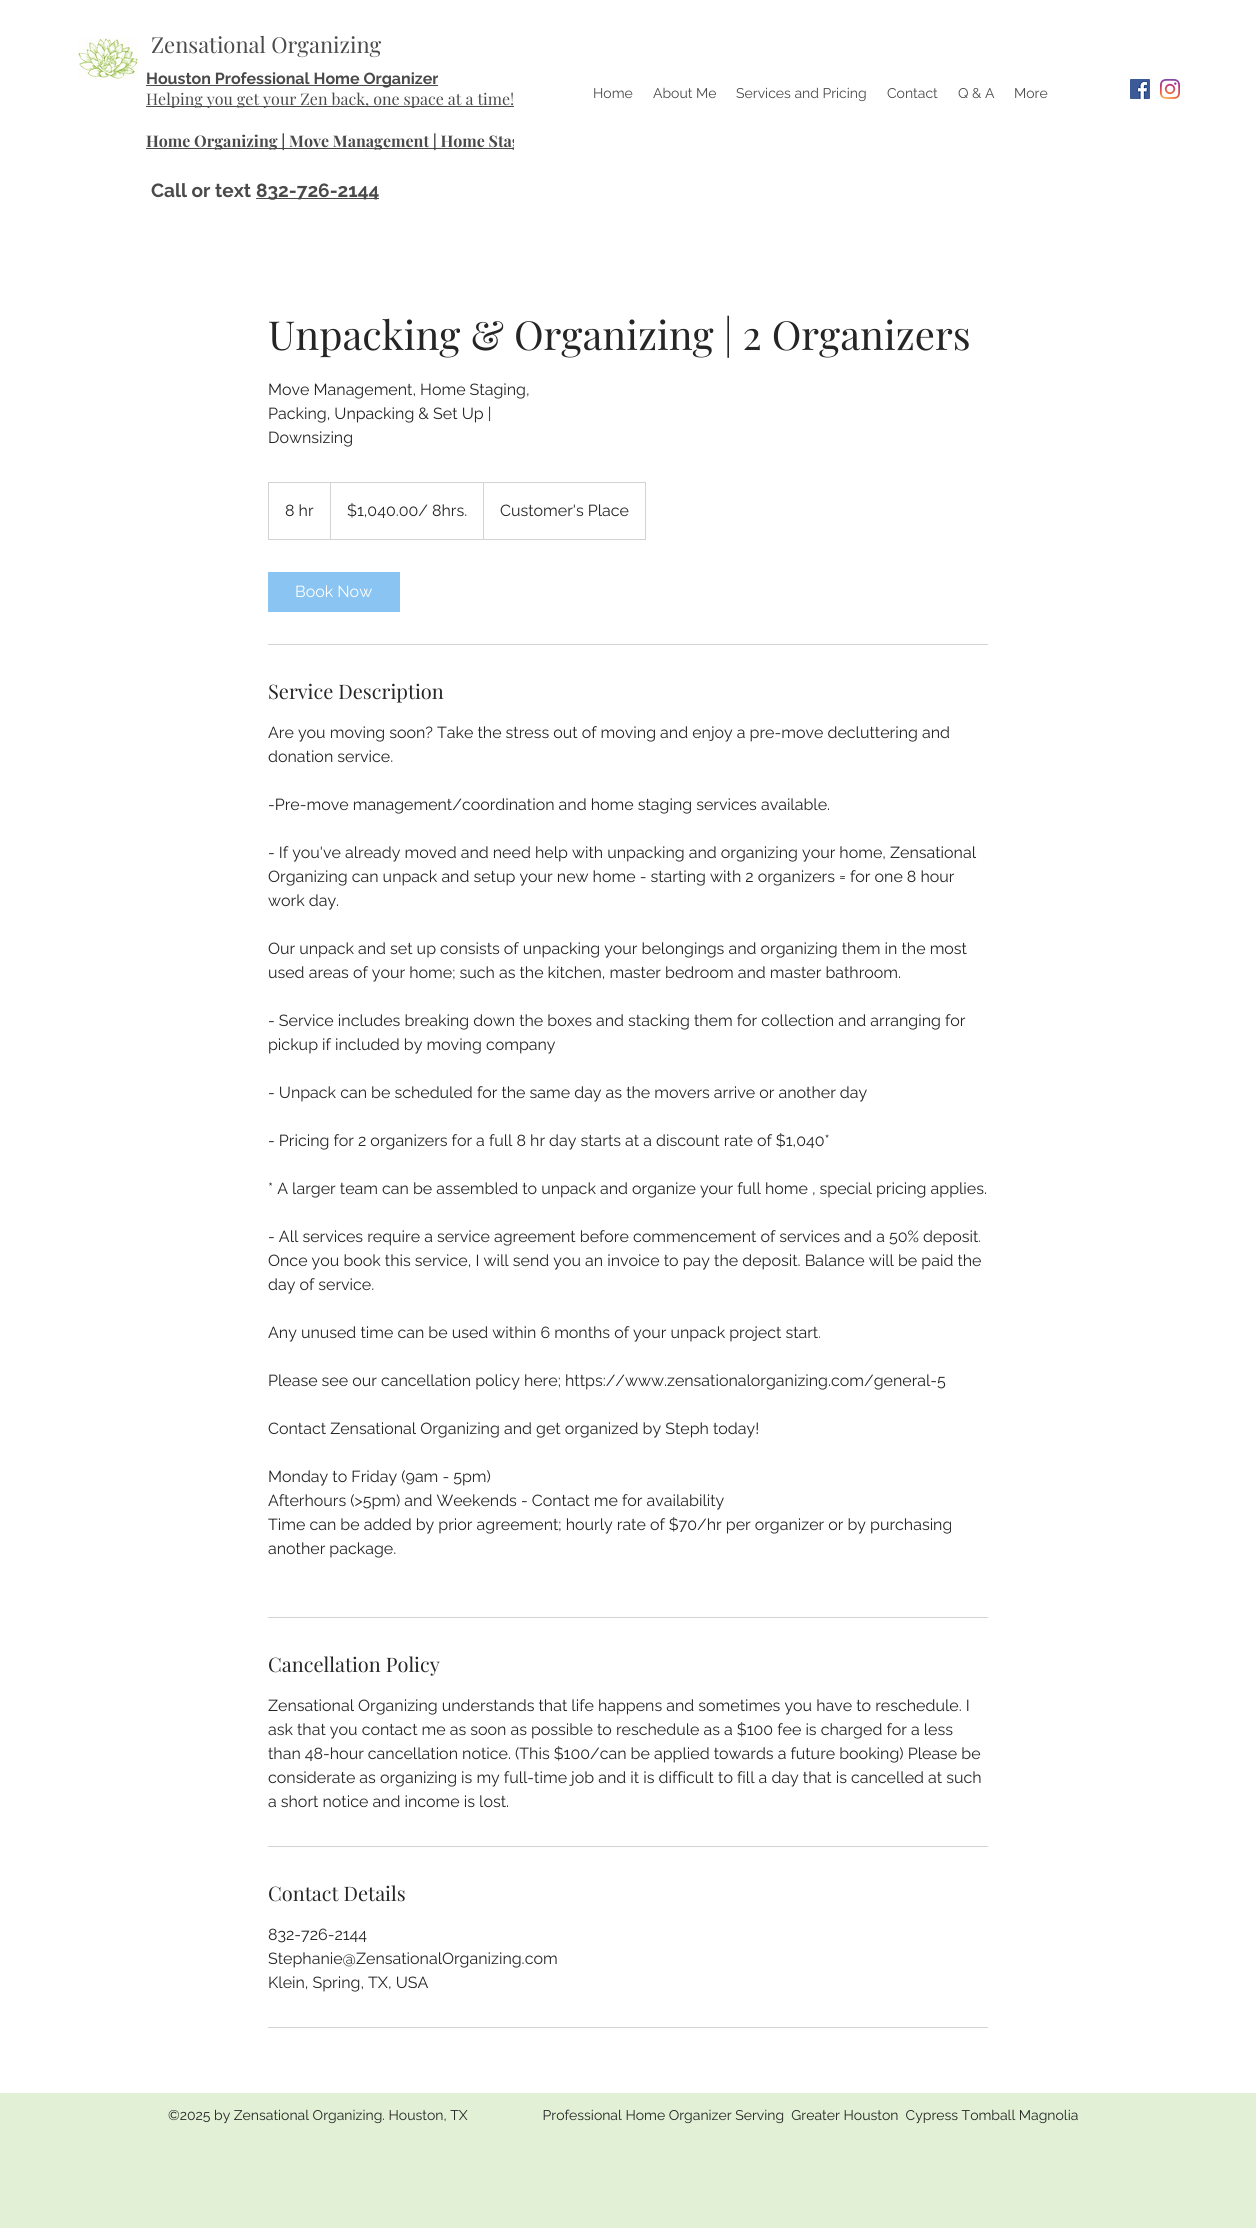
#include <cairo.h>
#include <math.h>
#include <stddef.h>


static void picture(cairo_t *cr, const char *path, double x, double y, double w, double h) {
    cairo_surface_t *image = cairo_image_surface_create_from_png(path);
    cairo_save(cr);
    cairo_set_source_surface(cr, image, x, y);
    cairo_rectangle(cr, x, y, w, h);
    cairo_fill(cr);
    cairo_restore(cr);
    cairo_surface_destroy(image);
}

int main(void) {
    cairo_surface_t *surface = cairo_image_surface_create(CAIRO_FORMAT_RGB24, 1256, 2228);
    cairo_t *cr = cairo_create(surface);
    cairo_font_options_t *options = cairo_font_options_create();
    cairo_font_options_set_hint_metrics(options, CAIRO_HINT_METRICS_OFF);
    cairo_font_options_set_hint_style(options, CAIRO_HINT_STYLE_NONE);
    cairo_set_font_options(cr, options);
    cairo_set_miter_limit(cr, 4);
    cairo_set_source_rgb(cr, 1, 1, 1);
    cairo_paint(cr);
    picture(cr, "img1.png", 78, 38, 60, 41);
    cairo_select_font_face(cr, "Playfair Display", CAIRO_FONT_SLANT_NORMAL, CAIRO_FONT_WEIGHT_NORMAL);
    cairo_set_font_size(cr, 22);
    cairo_set_source_rgb(cr, 0.29, 0.29, 0.29);
    cairo_move_to(cr, 151, 53);
    cairo_show_text(cr, "Zensational Organizing");
    cairo_rectangle(cr, 146, 85, 292, 1);
    cairo_fill(cr);
    cairo_select_font_face(cr, "Raleway", CAIRO_FONT_SLANT_NORMAL, CAIRO_FONT_WEIGHT_BOLD);
    cairo_set_font_size(cr, 16);
    cairo_move_to(cr, 146, 84);
    cairo_show_text(cr, "Houston Professional Home Organizer");
    cairo_rectangle(cr, 146, 106, 368, 1);
    cairo_fill(cr);
    cairo_select_font_face(cr, "Playfair Display", CAIRO_FONT_SLANT_NORMAL, CAIRO_FONT_WEIGHT_NORMAL);
    cairo_move_to(cr, 146, 105);
    cairo_show_text(cr, "Helping you get your Zen back, one space at a time!");
    cairo_rectangle(cr, 146, 148, 368, 1);
    cairo_fill(cr);
    cairo_select_font_face(cr, "Playfair Display", CAIRO_FONT_SLANT_NORMAL, CAIRO_FONT_WEIGHT_BOLD);
    cairo_move_to(cr, 146, 147);
    cairo_show_text(cr, "Home Organizing | Move Management | Home Stag");
    cairo_select_font_face(cr, "Raleway", CAIRO_FONT_SLANT_NORMAL, CAIRO_FONT_WEIGHT_BOLD);
    cairo_set_font_size(cr, 19);
    cairo_move_to(cr, 151, 197);
    cairo_show_text(cr, "Call or text");
    cairo_rectangle(cr, 256, 198, 123, 1);
    cairo_fill(cr);
    cairo_move_to(cr, 256, 197);
    cairo_show_text(cr, "832-726-2144");
    cairo_select_font_face(cr, "Raleway", CAIRO_FONT_SLANT_NORMAL, CAIRO_FONT_WEIGHT_NORMAL);
    cairo_set_font_size(cr, 14);
    cairo_move_to(cr, 593, 98);
    cairo_show_text(cr, "Home");
    cairo_move_to(cr, 653, 98);
    cairo_show_text(cr, "About Me");
    cairo_move_to(cr, 736, 98);
    cairo_show_text(cr, "Services and Pricing");
    cairo_move_to(cr, 887, 98);
    cairo_show_text(cr, "Contact");
    cairo_move_to(cr, 958, 98);
    cairo_show_text(cr, "Q & A");
    cairo_move_to(cr, 1014, 98);
    cairo_show_text(cr, "More");
    picture(cr, "img2.png", 1130, 79, 20, 20);
    picture(cr, "img3.png", 1160, 79, 20, 20);
    cairo_set_source_rgb(cr, 1, 1, 1);
    cairo_rectangle(cr, 514, 138, 7, 12);
    cairo_fill(cr);
    cairo_select_font_face(cr, "Playfair Display", CAIRO_FONT_SLANT_NORMAL, CAIRO_FONT_WEIGHT_NORMAL);
    cairo_set_font_size(cr, 40);
    cairo_set_source_rgb(cr, 0.145, 0.145, 0.145);
    cairo_move_to(cr, 268, 350);
    cairo_show_text(cr, "Unpacking & Organizing | 2 Organizers");
    cairo_select_font_face(cr, "Raleway", CAIRO_FONT_SLANT_NORMAL, CAIRO_FONT_WEIGHT_NORMAL);
    cairo_set_font_size(cr, 16);
    cairo_move_to(cr, 268, 395);
    cairo_show_text(cr, "Move Management, Home Staging,");
    cairo_move_to(cr, 268, 419);
    cairo_show_text(cr, "Packing, Unpacking & Set Up |");
    cairo_move_to(cr, 268, 443);
    cairo_show_text(cr, "Downsizing");
    cairo_rectangle(cr, 268.5, 482.5, 377, 57);
    cairo_set_source_rgb(cr, 0.827, 0.827, 0.827);
    cairo_set_line_width(cr, 1);
    cairo_stroke(cr);
    cairo_set_source_rgb(cr, 0.145, 0.145, 0.145);
    cairo_move_to(cr, 285, 516);
    cairo_show_text(cr, "8 hr");
    cairo_set_source_rgb(cr, 0.827, 0.827, 0.827);
    cairo_new_path(cr);
    cairo_move_to(cr, 330, 539);
    cairo_line_to(cr, 330, 482);
    cairo_line_to(cr, 331, 483);
    cairo_line_to(cr, 331, 539);
    cairo_close_path(cr);
    cairo_fill(cr);
    cairo_set_source_rgb(cr, 0.145, 0.145, 0.145);
    cairo_move_to(cr, 347, 516);
    cairo_show_text(cr, "$1,040.00/ 8hrs.");
    cairo_set_source_rgb(cr, 0.827, 0.827, 0.827);
    cairo_new_path(cr);
    cairo_move_to(cr, 483, 539);
    cairo_line_to(cr, 483, 482);
    cairo_line_to(cr, 484, 483);
    cairo_line_to(cr, 484, 539);
    cairo_close_path(cr);
    cairo_fill(cr);
    cairo_set_source_rgb(cr, 0.145, 0.145, 0.145);
    cairo_move_to(cr, 500, 516);
    cairo_show_text(cr, "Customer's Place");
    cairo_set_source_rgb(cr, 0.537, 0.769, 0.949);
    cairo_rectangle(cr, 268, 572, 132, 40);
    cairo_fill(cr);
    cairo_set_source_rgb(cr, 1, 1, 1);
    cairo_move_to(cr, 295, 597);
    cairo_show_text(cr, "Book Now");
    cairo_set_source_rgb(cr, 0.827, 0.827, 0.827);
    cairo_rectangle(cr, 268, 644, 720, 1);
    cairo_fill(cr);
    cairo_select_font_face(cr, "Playfair Display", CAIRO_FONT_SLANT_NORMAL, CAIRO_FONT_WEIGHT_NORMAL);
    cairo_set_font_size(cr, 20);
    cairo_set_source_rgb(cr, 0.145, 0.145, 0.145);
    cairo_move_to(cr, 268, 699);
    cairo_show_text(cr, "Service Description");
    cairo_select_font_face(cr, "Raleway", CAIRO_FONT_SLANT_NORMAL, CAIRO_FONT_WEIGHT_NORMAL);
    cairo_set_font_size(cr, 16);
    cairo_move_to(cr, 268, 738);
    cairo_show_text(cr, "Are you moving soon? Take the stress out of moving and enjoy a pre-move decluttering and");
    cairo_move_to(cr, 268, 762);
    cairo_show_text(cr, "donation service.");
    cairo_move_to(cr, 268, 810);
    cairo_show_text(cr, "-Pre-move management/coordination and home staging services available.");
    cairo_move_to(cr, 268, 858);
    cairo_show_text(cr, "- If you've already moved and need help with unpacking and organizing your home, Zensational");
    cairo_move_to(cr, 268, 882);
    cairo_show_text(cr, "Organizing can unpack and setup your new home - starting with 2 organizers = for one 8 hour");
    cairo_move_to(cr, 268, 906);
    cairo_show_text(cr, "work day.");
    cairo_move_to(cr, 268, 954);
    cairo_show_text(cr, "Our unpack and set up consists of unpacking your belongings and organizing them in the most");
    cairo_move_to(cr, 268, 978);
    cairo_show_text(cr, "used areas of your home; such as the kitchen, master bedroom and master bathroom.");
    cairo_move_to(cr, 268, 1026);
    cairo_show_text(cr, "- Service includes breaking down the boxes and stacking them for collection and arranging for");
    cairo_move_to(cr, 268, 1050);
    cairo_show_text(cr, "pickup if included by moving company");
    cairo_move_to(cr, 268, 1098);
    cairo_show_text(cr, "- Unpack can be scheduled for the same day as the movers arrive or another day");
    cairo_move_to(cr, 268, 1146);
    cairo_show_text(cr, "- Pricing for 2 organizers for a full 8 hr day starts at a discount rate of $1,040*");
    cairo_move_to(cr, 268, 1194);
    cairo_show_text(cr, "* A larger team can be assembled to unpack and organize your full home , special pricing applies.");
    cairo_move_to(cr, 268, 1242);
    cairo_show_text(cr, "- All services require a service agreement before commencement of services and a 50% deposit.");
    cairo_move_to(cr, 268, 1266);
    cairo_show_text(cr, "Once you book this service, I will send you an invoice to pay the deposit. Balance will be paid the");
    cairo_move_to(cr, 268, 1290);
    cairo_show_text(cr, "day of service.");
    cairo_move_to(cr, 268, 1338);
    cairo_show_text(cr, "Any unused time can be used within 6 months of your unpack project start.");
    cairo_move_to(cr, 268, 1386);
    cairo_show_text(cr, "Please see our cancellation policy here; https://www.zensationalorganizing.com/general-5");
    cairo_move_to(cr, 268, 1434);
    cairo_show_text(cr, "Contact Zensational Organizing and get organized by Steph today!");
    cairo_move_to(cr, 268, 1482);
    cairo_show_text(cr, "Monday to Friday (9am - 5pm)");
    cairo_move_to(cr, 268, 1506);
    cairo_show_text(cr, "Afterhours (>5pm) and Weekends - Contact me for availability");
    cairo_move_to(cr, 268, 1530);
    cairo_show_text(cr, "Time can be added by prior agreement; hourly rate of $70/hr per organizer or by purchasing");
    cairo_move_to(cr, 268, 1554);
    cairo_show_text(cr, "another package.");
    cairo_set_source_rgb(cr, 0.827, 0.827, 0.827);
    cairo_rectangle(cr, 268, 1617, 720, 1);
    cairo_fill(cr);
    cairo_select_font_face(cr, "Playfair Display", CAIRO_FONT_SLANT_NORMAL, CAIRO_FONT_WEIGHT_NORMAL);
    cairo_set_font_size(cr, 20);
    cairo_set_source_rgb(cr, 0.145, 0.145, 0.145);
    cairo_move_to(cr, 268, 1672);
    cairo_show_text(cr, "Cancellation Policy");
    cairo_select_font_face(cr, "Raleway", CAIRO_FONT_SLANT_NORMAL, CAIRO_FONT_WEIGHT_NORMAL);
    cairo_set_font_size(cr, 16);
    cairo_move_to(cr, 268, 1711);
    cairo_show_text(cr, "Zensational Organizing understands that life happens and sometimes you have to reschedule. I");
    cairo_move_to(cr, 268, 1735);
    cairo_show_text(cr, "ask that you contact me as soon as possible to reschedule as a $100 fee is charged for a less");
    cairo_move_to(cr, 268, 1759);
    cairo_show_text(cr, "than 48-hour cancellation notice. (This $100/can be applied towards a future booking) Please be");
    cairo_move_to(cr, 268, 1783);
    cairo_show_text(cr, "considerate as organizing is my full-time job and it is difficult to fill a day that is cancelled at such");
    cairo_move_to(cr, 268, 1807);
    cairo_show_text(cr, "a short notice and income is lost.");
    cairo_set_source_rgb(cr, 0.827, 0.827, 0.827);
    cairo_rectangle(cr, 268, 1846, 720, 1);
    cairo_fill(cr);
    cairo_select_font_face(cr, "Playfair Display", CAIRO_FONT_SLANT_NORMAL, CAIRO_FONT_WEIGHT_NORMAL);
    cairo_set_font_size(cr, 20);
    cairo_set_source_rgb(cr, 0.145, 0.145, 0.145);
    cairo_move_to(cr, 268, 1901);
    cairo_show_text(cr, "Contact Details");
    cairo_select_font_face(cr, "Raleway", CAIRO_FONT_SLANT_NORMAL, CAIRO_FONT_WEIGHT_NORMAL);
    cairo_set_font_size(cr, 16);
    cairo_move_to(cr, 268, 1940);
    cairo_show_text(cr, "832-726-2144");
    cairo_move_to(cr, 268, 1964);
    cairo_show_text(cr, "Stephanie@ZensationalOrganizing.com");
    cairo_move_to(cr, 268, 1988);
    cairo_show_text(cr, "Klein, Spring, TX, USA");
    cairo_set_source_rgb(cr, 0.827, 0.827, 0.827);
    cairo_rectangle(cr, 268, 2027, 720, 1);
    cairo_fill(cr);
    cairo_set_source_rgb(cr, 0.886, 0.941, 0.835);
    cairo_rectangle(cr, 0, 2093, 1256, 135);
    cairo_fill(cr);
    cairo_set_font_size(cr, 14);
    cairo_set_source_rgb(cr, 0.145, 0.145, 0.145);
    cairo_move_to(cr, 168, 2120);
    cairo_show_text(cr, "©2025 by Zensational Organizing. Houston, TX                     Professional Home Organizer Serving  Greater Houston  Cypress Tomball Magnolia");
    cairo_surface_write_to_png(surface, "page.png");
    cairo_font_options_destroy(options);
    cairo_destroy(cr);
    cairo_surface_destroy(surface);
    return 0;
}
